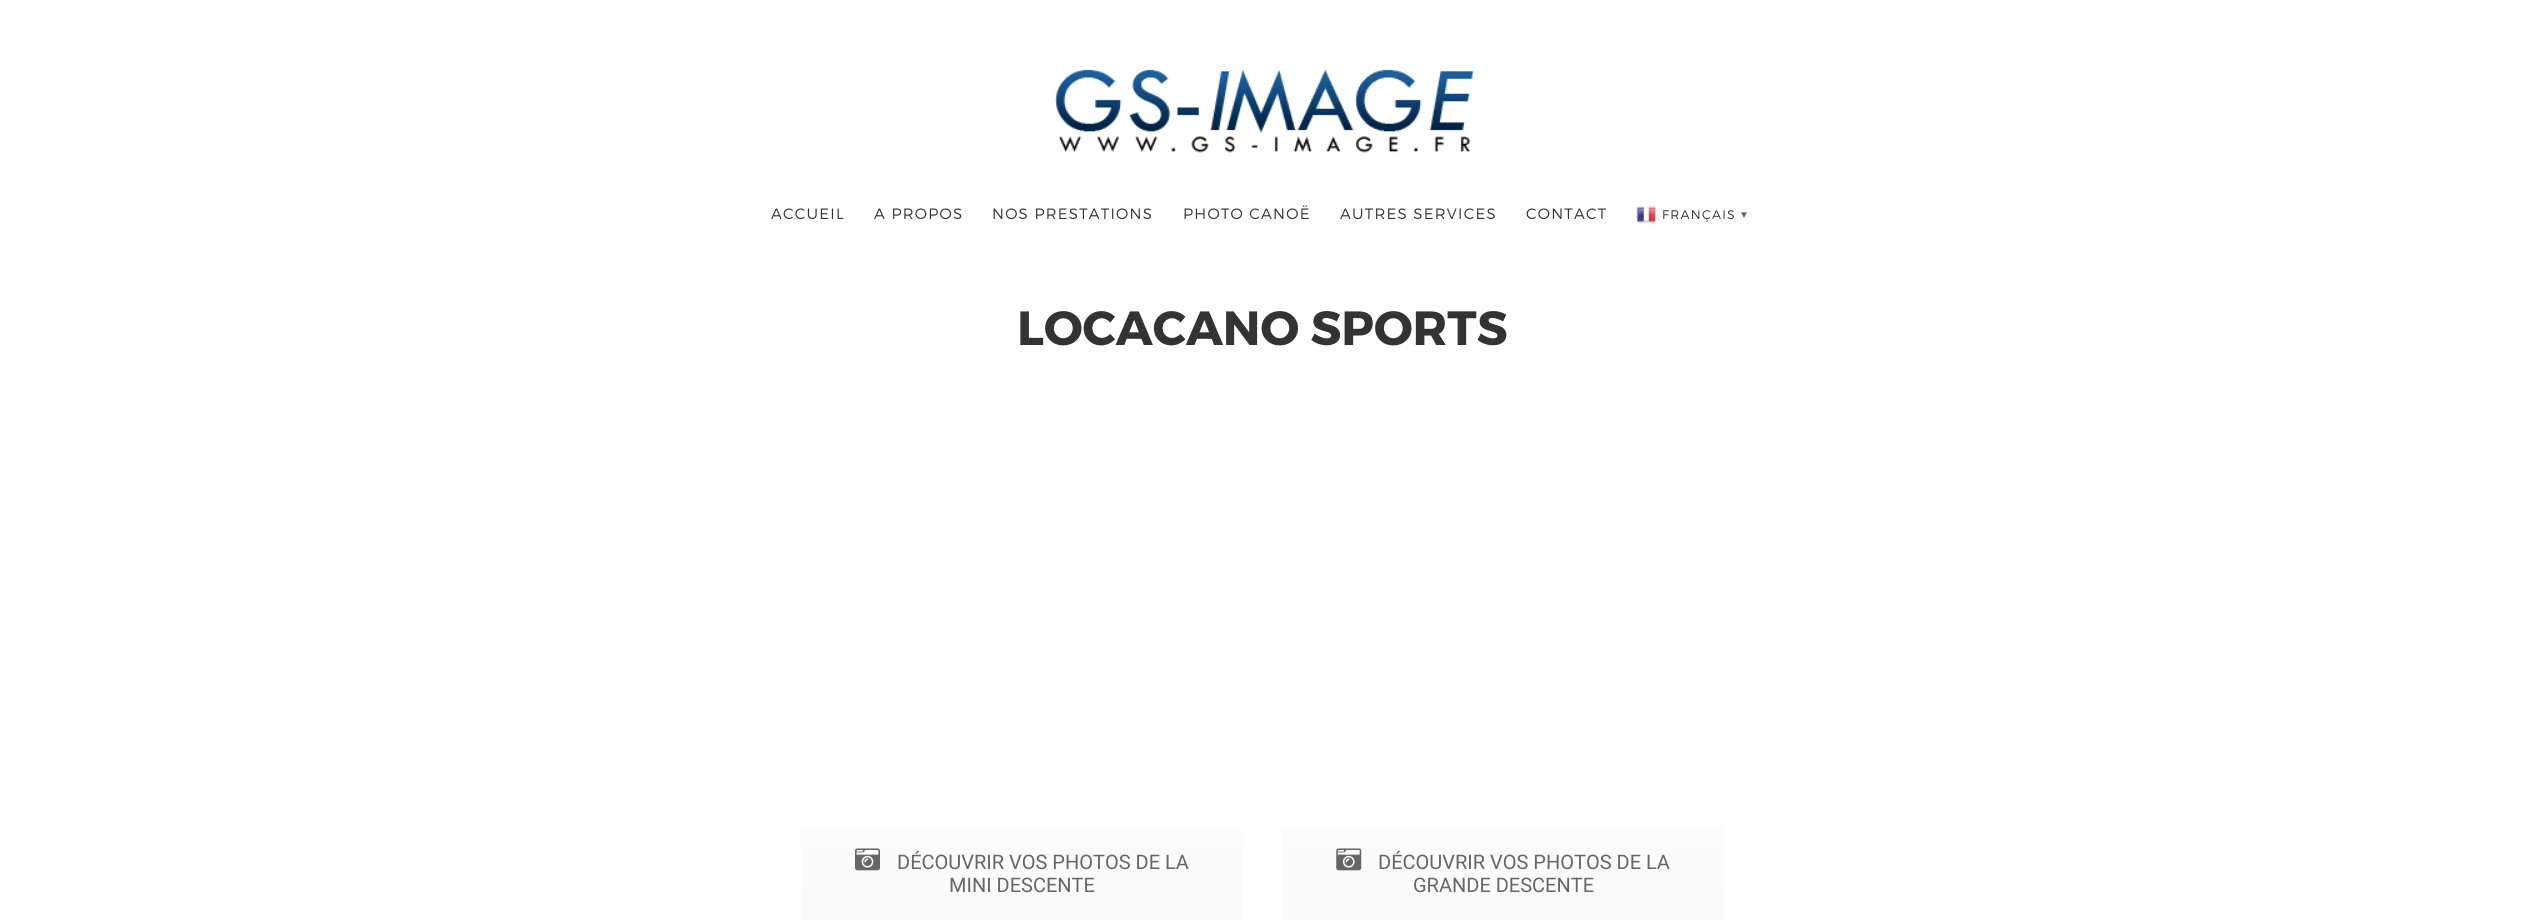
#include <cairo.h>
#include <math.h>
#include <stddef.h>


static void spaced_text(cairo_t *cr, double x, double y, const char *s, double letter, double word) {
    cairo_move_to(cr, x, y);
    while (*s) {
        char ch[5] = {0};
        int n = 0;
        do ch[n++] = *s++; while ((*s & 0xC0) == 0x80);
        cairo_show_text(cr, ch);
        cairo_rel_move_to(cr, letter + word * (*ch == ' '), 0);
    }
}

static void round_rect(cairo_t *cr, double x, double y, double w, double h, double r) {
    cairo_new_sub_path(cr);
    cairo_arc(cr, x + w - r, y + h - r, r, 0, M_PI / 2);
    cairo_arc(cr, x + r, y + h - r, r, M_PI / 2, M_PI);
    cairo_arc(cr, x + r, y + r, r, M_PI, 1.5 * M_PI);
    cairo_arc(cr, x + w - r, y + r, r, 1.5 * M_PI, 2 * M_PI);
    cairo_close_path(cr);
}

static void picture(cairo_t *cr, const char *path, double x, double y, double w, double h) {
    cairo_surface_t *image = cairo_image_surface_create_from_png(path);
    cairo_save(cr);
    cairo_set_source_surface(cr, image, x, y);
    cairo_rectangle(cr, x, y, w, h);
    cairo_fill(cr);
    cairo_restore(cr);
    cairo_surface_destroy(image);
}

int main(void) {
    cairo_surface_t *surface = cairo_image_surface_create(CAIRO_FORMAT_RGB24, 2525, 921);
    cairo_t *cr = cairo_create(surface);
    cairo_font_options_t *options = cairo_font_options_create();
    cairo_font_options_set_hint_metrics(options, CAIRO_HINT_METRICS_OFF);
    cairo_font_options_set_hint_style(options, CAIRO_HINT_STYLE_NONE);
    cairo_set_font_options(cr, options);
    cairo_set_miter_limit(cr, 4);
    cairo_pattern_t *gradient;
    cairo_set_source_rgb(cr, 1, 1, 1);
    cairo_paint(cr);
    picture(cr, "img1.png", 1055, 69, 419, 84);
    cairo_select_font_face(cr, "Montserrat Light", CAIRO_FONT_SLANT_NORMAL, CAIRO_FONT_WEIGHT_NORMAL);
    cairo_set_font_size(cr, 15);
    cairo_set_source_rgb(cr, 0.2, 0.2, 0.2);
    spaced_text(cr, 771, 219, "ACCUEIL", 1.25, 0);
    spaced_text(cr, 874, 219, "A PROPOS", 1.25, 0);
    spaced_text(cr, 992, 219, "NOS PRESTATIONS", 1.25, 0);
    spaced_text(cr, 1183, 219, "PHOTO CANOË", 1.25, 0);
    spaced_text(cr, 1340, 219, "AUTRES SERVICES", 1.25, 0);
    spaced_text(cr, 1526, 219, "CONTACT", 1.25, 0);
    picture(cr, "img2.png", 1636, 206, 21, 18);
    cairo_set_font_size(cr, 12.5);
    spaced_text(cr, 1662, 219, "FRANÇAIS", 1.25, 0);
    cairo_select_font_face(cr, "Liberation Sans", CAIRO_FONT_SLANT_NORMAL, CAIRO_FONT_WEIGHT_BOLD);
    cairo_set_font_size(cr, 10);
    cairo_set_source_rgb(cr, 0.4, 0.4, 0.4);
    spaced_text(cr, 1739, 218, "▼", 1.25, 0);
    cairo_select_font_face(cr, "Montserrat", CAIRO_FONT_SLANT_NORMAL, CAIRO_FONT_WEIGHT_BOLD);
    cairo_set_font_size(cr, 48);
    cairo_set_source_rgb(cr, 0.2, 0.2, 0.2);
    cairo_move_to(cr, 1017, 345);
    cairo_show_text(cr, "LOCACANO SPORTS");
    cairo_save(cr);
    round_rect(cr, 800, 826, 444, 95, 6);
    cairo_clip(cr);
    gradient = cairo_pattern_create_linear(1022, 828, 1022, 920);
    cairo_pattern_add_color_stop_rgba(gradient, 0, 0.988, 0.988, 0.988, 1);
    cairo_pattern_add_color_stop_rgba(gradient, 1, 0.98, 0.98, 0.98, 1);
    cairo_set_source(cr, gradient);
    cairo_pattern_destroy(gradient);
    cairo_rectangle(cr, 800, 828, 444, 92);
    cairo_fill(cr);
    cairo_restore(cr);
    round_rect(cr, 800.5, 826.5, 443, 94, 5.5);
    cairo_set_source_rgb(cr, 1, 1, 1);
    cairo_set_line_width(cr, 1);
    cairo_stroke(cr);
    picture(cr, "img3.png", 855, 848, 25, 23);
    cairo_select_font_face(cr, "Roboto", CAIRO_FONT_SLANT_NORMAL, CAIRO_FONT_WEIGHT_NORMAL);
    cairo_set_font_size(cr, 20);
    cairo_set_source_rgb(cr, 0.4, 0.4, 0.4);
    cairo_move_to(cr, 897, 869);
    cairo_show_text(cr, "DÉCOUVRIR VOS PHOTOS DE LA");
    cairo_move_to(cr, 949, 892);
    cairo_show_text(cr, "MINI DESCENTE");
    cairo_save(cr);
    round_rect(cr, 1281, 826, 444, 95, 6);
    cairo_clip(cr);
    gradient = cairo_pattern_create_linear(1503, 828, 1503, 920);
    cairo_pattern_add_color_stop_rgba(gradient, 0, 0.988, 0.988, 0.988, 1);
    cairo_pattern_add_color_stop_rgba(gradient, 1, 0.98, 0.98, 0.98, 1);
    cairo_set_source(cr, gradient);
    cairo_pattern_destroy(gradient);
    cairo_rectangle(cr, 1281, 828, 444, 92);
    cairo_fill(cr);
    cairo_restore(cr);
    round_rect(cr, 1281.5, 826.5, 443, 94, 5.5);
    cairo_set_source_rgb(cr, 1, 1, 1);
    cairo_stroke(cr);
    picture(cr, "img4.png", 1336, 848, 26, 23);
    cairo_set_source_rgb(cr, 0.4, 0.4, 0.4);
    cairo_move_to(cr, 1378, 869);
    cairo_show_text(cr, "DÉCOUVRIR VOS PHOTOS DE LA");
    cairo_move_to(cr, 1413, 892);
    cairo_show_text(cr, "GRANDE DESCENTE");
    cairo_surface_write_to_png(surface, "page.png");
    cairo_font_options_destroy(options);
    cairo_destroy(cr);
    cairo_surface_destroy(surface);
    return 0;
}
